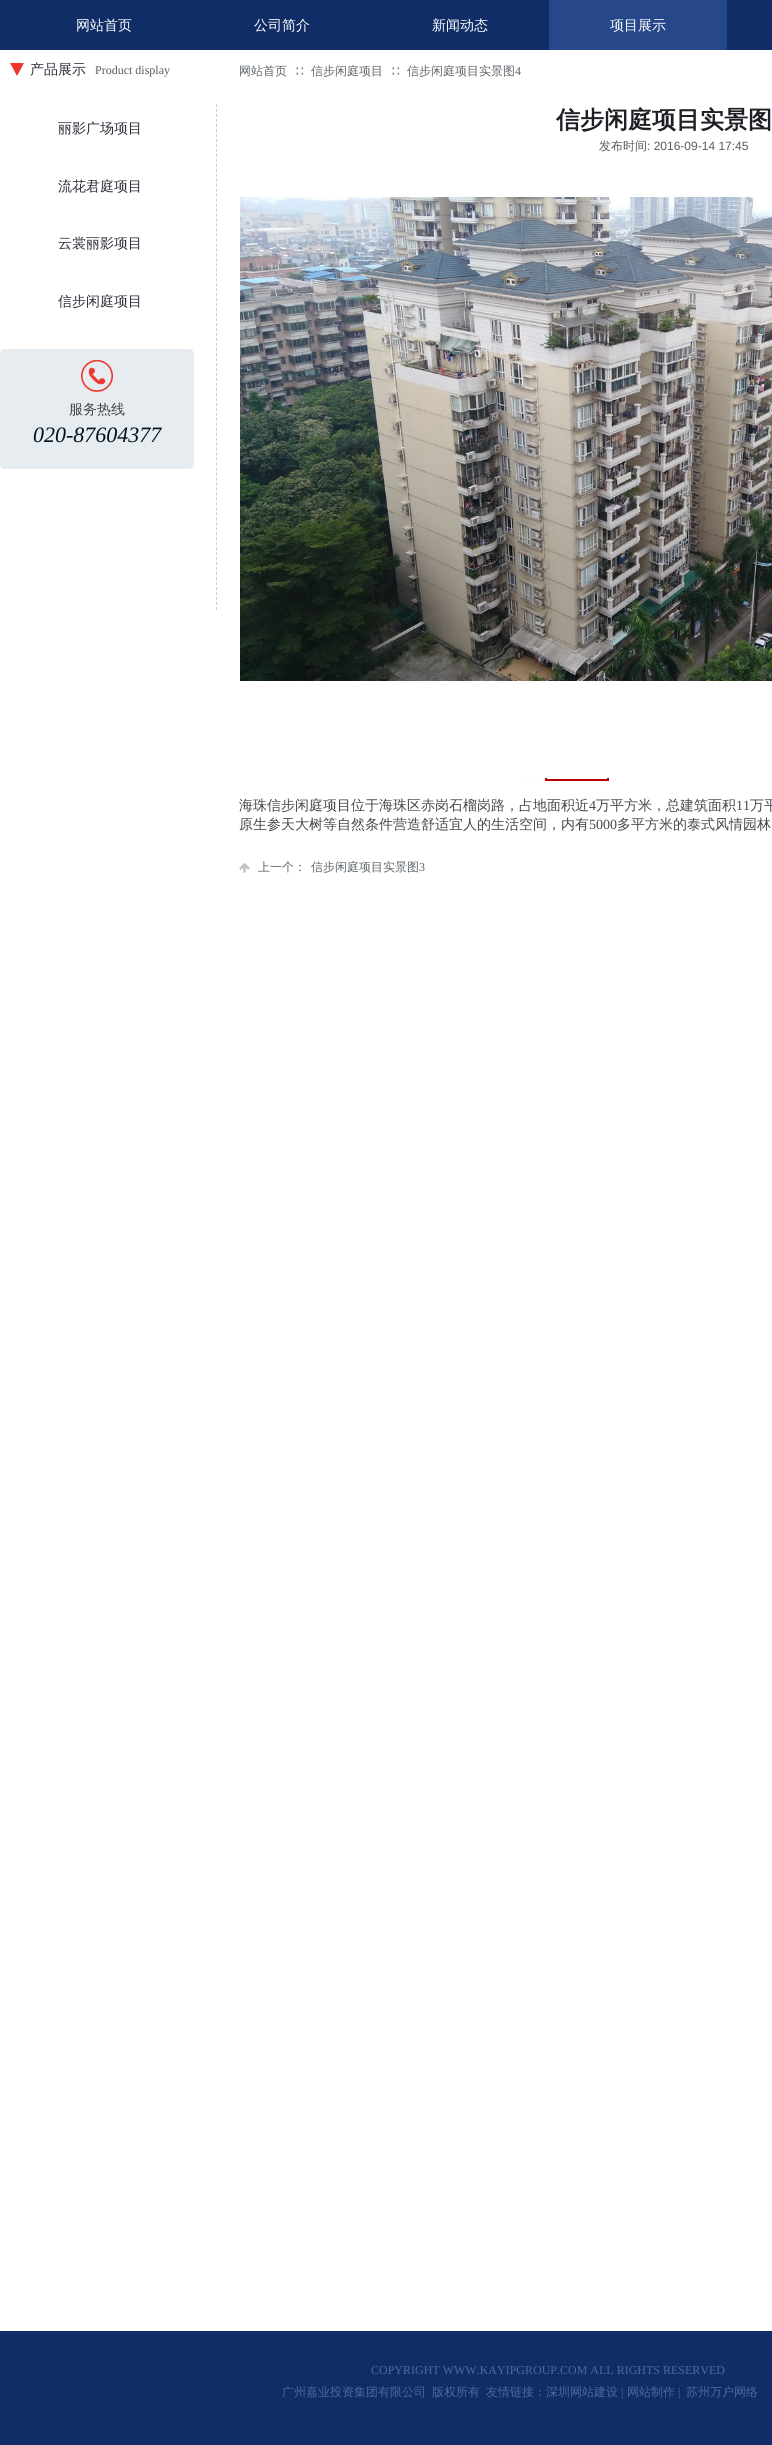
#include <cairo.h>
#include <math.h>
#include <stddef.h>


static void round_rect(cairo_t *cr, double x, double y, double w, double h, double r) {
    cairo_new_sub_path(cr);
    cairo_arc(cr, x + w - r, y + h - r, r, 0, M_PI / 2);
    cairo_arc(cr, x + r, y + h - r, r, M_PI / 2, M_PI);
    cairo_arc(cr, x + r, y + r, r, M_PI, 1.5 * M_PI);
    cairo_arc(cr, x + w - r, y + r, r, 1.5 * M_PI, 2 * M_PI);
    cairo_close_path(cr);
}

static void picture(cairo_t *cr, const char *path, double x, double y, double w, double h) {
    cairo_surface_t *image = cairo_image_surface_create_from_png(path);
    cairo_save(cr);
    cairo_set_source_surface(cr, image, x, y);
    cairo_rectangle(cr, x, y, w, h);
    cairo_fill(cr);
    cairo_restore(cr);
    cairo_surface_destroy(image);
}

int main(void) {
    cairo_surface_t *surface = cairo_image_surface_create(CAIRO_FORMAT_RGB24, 772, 2445);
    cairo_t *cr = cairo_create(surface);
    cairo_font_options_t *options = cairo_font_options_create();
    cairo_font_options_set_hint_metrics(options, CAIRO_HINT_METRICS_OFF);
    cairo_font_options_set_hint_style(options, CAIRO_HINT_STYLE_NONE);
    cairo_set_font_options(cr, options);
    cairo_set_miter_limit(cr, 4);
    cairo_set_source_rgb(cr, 1, 1, 1);
    cairo_paint(cr);
    cairo_set_source_rgb(cr, 0.063, 0.176, 0.404);
    cairo_rectangle(cr, 0, 0, 772, 50);
    cairo_fill(cr);
    cairo_select_font_face(cr, "WenQuanYi Zen Hei Medium", CAIRO_FONT_SLANT_NORMAL, CAIRO_FONT_WEIGHT_NORMAL);
    cairo_set_font_size(cr, 14);
    cairo_set_source_rgb(cr, 1, 1, 1);
    cairo_move_to(cr, 76, 30);
    cairo_show_text(cr, "网站首页");
    cairo_move_to(cr, 254, 30);
    cairo_show_text(cr, "公司简介");
    cairo_move_to(cr, 432, 30);
    cairo_show_text(cr, "新闻动态");
    cairo_set_source_rgb(cr, 0.149, 0.278, 0.537);
    cairo_rectangle(cr, 549, 0, 178, 50);
    cairo_fill(cr);
    cairo_set_source_rgb(cr, 1, 1, 1);
    cairo_move_to(cr, 610, 30);
    cairo_show_text(cr, "项目展示");
    picture(cr, "img1.png", 10, 63, 14, 13);
    cairo_set_source_rgb(cr, 0.173, 0.184, 0.224);
    cairo_move_to(cr, 30, 74);
    cairo_show_text(cr, "产品展示");
    cairo_select_font_face(cr, "Liberation Serif", CAIRO_FONT_SLANT_NORMAL, CAIRO_FONT_WEIGHT_NORMAL);
    cairo_set_font_size(cr, 12);
    cairo_set_source_rgb(cr, 0.353, 0.353, 0.353);
    cairo_move_to(cr, 95, 74);
    cairo_show_text(cr, "Product display");
    cairo_select_font_face(cr, "WenQuanYi Zen Hei Medium", CAIRO_FONT_SLANT_NORMAL, CAIRO_FONT_WEIGHT_NORMAL);
    cairo_set_source_rgb(cr, 0.365, 0.388, 0.412);
    cairo_move_to(cr, 239, 75);
    cairo_show_text(cr, "网站首页");
    cairo_set_source_rgb(cr, 0.557, 0.596, 0.624);
    cairo_move_to(cr, 294, 75);
    cairo_show_text(cr, "∷");
    cairo_set_source_rgb(cr, 0.365, 0.388, 0.412);
    cairo_move_to(cr, 311, 75);
    cairo_show_text(cr, "信步闲庭项目");
    cairo_set_source_rgb(cr, 0.557, 0.596, 0.624);
    cairo_move_to(cr, 390, 75);
    cairo_show_text(cr, "∷");
    cairo_set_source_rgb(cr, 0.365, 0.388, 0.412);
    cairo_move_to(cr, 407, 75);
    cairo_show_text(cr, "信步闲庭项目实景图");
    cairo_select_font_face(cr, "Liberation Serif", CAIRO_FONT_SLANT_NORMAL, CAIRO_FONT_WEIGHT_NORMAL);
    cairo_move_to(cr, 515, 75);
    cairo_show_text(cr, "4");
    cairo_select_font_face(cr, "WenQuanYi Zen Hei Medium", CAIRO_FONT_SLANT_NORMAL, CAIRO_FONT_WEIGHT_NORMAL);
    cairo_set_font_size(cr, 14);
    cairo_set_source_rgb(cr, 0.173, 0.184, 0.224);
    cairo_move_to(cr, 58, 133);
    cairo_show_text(cr, "丽影广场项目");
    cairo_move_to(cr, 58, 191);
    cairo_show_text(cr, "流花君庭项目");
    cairo_move_to(cr, 58, 248);
    cairo_show_text(cr, "云裳丽影项目");
    cairo_move_to(cr, 58, 306);
    cairo_show_text(cr, "信步闲庭项目");
    cairo_new_path(cr);
    cairo_move_to(cr, 216.5, 104);
    cairo_line_to(cr, 216.5, 610);
    cairo_set_source_rgb(cr, 0.765, 0.816, 0.839);
    cairo_set_line_width(cr, 1);
    cairo_set_dash(cr, (double[]){3, 1.98}, 2, 0);
    cairo_stroke(cr);
    cairo_select_font_face(cr, "WenQuanYi Zen Hei", CAIRO_FONT_SLANT_NORMAL, CAIRO_FONT_WEIGHT_BOLD);
    cairo_set_font_size(cr, 24);
    cairo_set_source_rgb(cr, 0.114, 0.122, 0.141);
    cairo_move_to(cr, 556, 128);
    cairo_show_text(cr, "信步闲庭项目实景图");
    cairo_select_font_face(cr, "WenQuanYi Zen Hei Medium", CAIRO_FONT_SLANT_NORMAL, CAIRO_FONT_WEIGHT_NORMAL);
    cairo_set_font_size(cr, 12);
    cairo_set_source_rgb(cr, 0.353, 0.353, 0.353);
    cairo_move_to(cr, 599, 150);
    cairo_show_text(cr, "发布时间");
    cairo_select_font_face(cr, "Liberation Sans", CAIRO_FONT_SLANT_NORMAL, CAIRO_FONT_WEIGHT_NORMAL);
    cairo_move_to(cr, 647, 150);
    cairo_show_text(cr, ": 2016-09-14 17:45");
    picture(cr, "img2.png", 240, 197, 532, 484);
    picture(cr, "img3.png", 521, 778, 21, 1);
    cairo_rectangle(cr, 546, 718, 62, 62);
    cairo_set_source_rgb(cr, 0.725, 0, 0);
    cairo_set_line_width(cr, 2);
    cairo_set_dash(cr, NULL, 0, 0);
    cairo_stroke(cr);
    cairo_select_font_face(cr, "WenQuanYi Zen Hei Medium", CAIRO_FONT_SLANT_NORMAL, CAIRO_FONT_WEIGHT_NORMAL);
    cairo_set_font_size(cr, 14);
    cairo_set_source_rgb(cr, 0.267, 0.278, 0.294);
    cairo_move_to(cr, 239, 810);
    cairo_show_text(cr, "海珠信步闲庭项目位于海珠区赤岗石榴岗路，占地面积近");
    cairo_select_font_face(cr, "Liberation Serif", CAIRO_FONT_SLANT_NORMAL, CAIRO_FONT_WEIGHT_NORMAL);
    cairo_move_to(cr, 589, 810);
    cairo_show_text(cr, "4");
    cairo_select_font_face(cr, "WenQuanYi Zen Hei Medium", CAIRO_FONT_SLANT_NORMAL, CAIRO_FONT_WEIGHT_NORMAL);
    cairo_move_to(cr, 596, 810);
    cairo_show_text(cr, "万平方米，总建筑面积");
    cairo_select_font_face(cr, "Liberation Serif", CAIRO_FONT_SLANT_NORMAL, CAIRO_FONT_WEIGHT_NORMAL);
    cairo_move_to(cr, 736, 810);
    cairo_show_text(cr, "11");
    cairo_select_font_face(cr, "WenQuanYi Zen Hei Medium", CAIRO_FONT_SLANT_NORMAL, CAIRO_FONT_WEIGHT_NORMAL);
    cairo_move_to(cr, 750, 810);
    cairo_show_text(cr, "万平");
    cairo_move_to(cr, 239, 829);
    cairo_show_text(cr, "原生参天大树等自然条件营造舒适宜人的生活空间，内有");
    cairo_select_font_face(cr, "Liberation Serif", CAIRO_FONT_SLANT_NORMAL, CAIRO_FONT_WEIGHT_NORMAL);
    cairo_move_to(cr, 589, 829);
    cairo_show_text(cr, "5000");
    cairo_select_font_face(cr, "WenQuanYi Zen Hei Medium", CAIRO_FONT_SLANT_NORMAL, CAIRO_FONT_WEIGHT_NORMAL);
    cairo_move_to(cr, 617, 829);
    cairo_show_text(cr, "多平方米的泰式风情园林");
    cairo_set_source_rgb(cr, 0.761, 0.761, 0.761);
    cairo_rectangle(cr, 239, 863, 11, 10);
    cairo_fill(cr);
    picture(cr, "img4.png", 239, 863, 11, 10);
    cairo_set_font_size(cr, 12);
    cairo_set_source_rgb(cr, 0.365, 0.388, 0.412);
    cairo_move_to(cr, 258, 871);
    cairo_show_text(cr, "上一个：");
    cairo_move_to(cr, 311, 871);
    cairo_show_text(cr, "信步闲庭项目实景图");
    cairo_select_font_face(cr, "Liberation Serif", CAIRO_FONT_SLANT_NORMAL, CAIRO_FONT_WEIGHT_NORMAL);
    cairo_move_to(cr, 419, 871);
    cairo_show_text(cr, "3");
    cairo_set_source_rgb(cr, 0.906, 0.925, 0.941);
    round_rect(cr, 0, 349, 194, 120, 5);
    cairo_fill(cr);
    picture(cr, "img5.png", 81, 360, 32, 32);
    cairo_select_font_face(cr, "WenQuanYi Zen Hei Medium", CAIRO_FONT_SLANT_NORMAL, CAIRO_FONT_WEIGHT_NORMAL);
    cairo_set_font_size(cr, 14);
    cairo_set_source_rgb(cr, 0.267, 0.278, 0.294);
    cairo_move_to(cr, 69, 414);
    cairo_show_text(cr, "服务热线");
    cairo_select_font_face(cr, "Liberation Serif", CAIRO_FONT_SLANT_ITALIC, CAIRO_FONT_WEIGHT_NORMAL);
    cairo_set_font_size(cr, 22);
    cairo_set_source_rgb(cr, 0.008, 0.071, 0.118);
    cairo_move_to(cr, 33, 442);
    cairo_show_text(cr, "020-87604377");
    cairo_set_source_rgb(cr, 1, 1, 1);
    cairo_rectangle(cr, 545, 717, 64, 61);
    cairo_fill(cr);
    cairo_set_source_rgb(cr, 0.063, 0.176, 0.404);
    cairo_rectangle(cr, 0, 2331, 772, 114);
    cairo_fill(cr);
    cairo_select_font_face(cr, "Liberation Serif", CAIRO_FONT_SLANT_NORMAL, CAIRO_FONT_WEIGHT_NORMAL);
    cairo_set_font_size(cr, 12);
    cairo_set_source_rgb(cr, 0.275, 0.424, 0.624);
    cairo_move_to(cr, 371, 2374);
    cairo_show_text(cr, "COPYRIGHT WWW.KAYIPGROUP.COM ALL RIGHTS RESERVED");
    cairo_select_font_face(cr, "WenQuanYi Zen Hei Medium", CAIRO_FONT_SLANT_NORMAL, CAIRO_FONT_WEIGHT_NORMAL);
    cairo_move_to(cr, 282, 2396);
    cairo_show_text(cr, "广州嘉业投资集团有限公司");
    cairo_move_to(cr, 432, 2396);
    cairo_show_text(cr, "版权所有");
    cairo_move_to(cr, 486, 2396);
    cairo_show_text(cr, "友情链接：深圳网站建设");
    cairo_select_font_face(cr, "Liberation Serif", CAIRO_FONT_SLANT_NORMAL, CAIRO_FONT_WEIGHT_NORMAL);
    cairo_move_to(cr, 621, 2396);
    cairo_show_text(cr, "|");
    cairo_select_font_face(cr, "WenQuanYi Zen Hei Medium", CAIRO_FONT_SLANT_NORMAL, CAIRO_FONT_WEIGHT_NORMAL);
    cairo_move_to(cr, 627, 2396);
    cairo_show_text(cr, "网站制作");
    cairo_select_font_face(cr, "Liberation Serif", CAIRO_FONT_SLANT_NORMAL, CAIRO_FONT_WEIGHT_NORMAL);
    cairo_move_to(cr, 678, 2396);
    cairo_show_text(cr, "|");
    cairo_select_font_face(cr, "WenQuanYi Zen Hei Medium", CAIRO_FONT_SLANT_NORMAL, CAIRO_FONT_WEIGHT_NORMAL);
    cairo_move_to(cr, 686, 2396);
    cairo_show_text(cr, "苏州万户网络");
    cairo_surface_write_to_png(surface, "page.png");
    cairo_font_options_destroy(options);
    cairo_destroy(cr);
    cairo_surface_destroy(surface);
    return 0;
}
